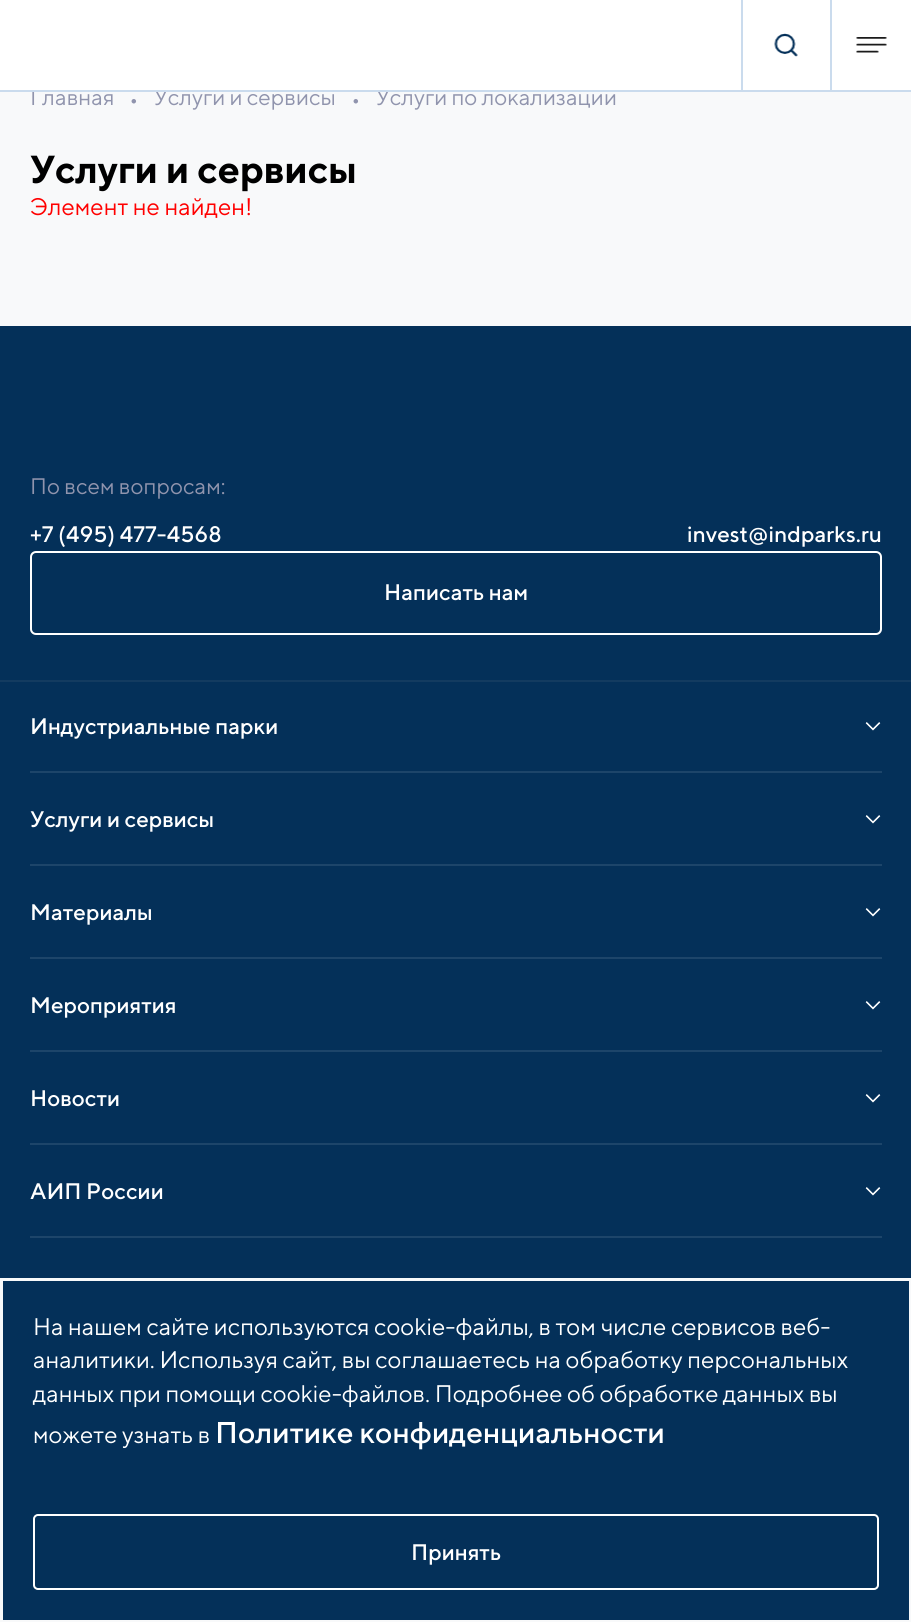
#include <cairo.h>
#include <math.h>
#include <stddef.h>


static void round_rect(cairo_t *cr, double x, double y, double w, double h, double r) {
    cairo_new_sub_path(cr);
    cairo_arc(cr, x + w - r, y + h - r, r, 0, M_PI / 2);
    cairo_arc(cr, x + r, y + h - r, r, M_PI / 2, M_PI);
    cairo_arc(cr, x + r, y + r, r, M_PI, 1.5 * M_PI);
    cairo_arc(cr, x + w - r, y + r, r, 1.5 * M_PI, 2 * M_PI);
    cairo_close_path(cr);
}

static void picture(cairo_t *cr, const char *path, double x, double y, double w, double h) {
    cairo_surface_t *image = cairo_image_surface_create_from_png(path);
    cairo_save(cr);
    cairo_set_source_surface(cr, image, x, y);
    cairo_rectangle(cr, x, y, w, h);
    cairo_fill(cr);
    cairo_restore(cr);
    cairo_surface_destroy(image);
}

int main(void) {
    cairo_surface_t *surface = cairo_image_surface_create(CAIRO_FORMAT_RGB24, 911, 1622);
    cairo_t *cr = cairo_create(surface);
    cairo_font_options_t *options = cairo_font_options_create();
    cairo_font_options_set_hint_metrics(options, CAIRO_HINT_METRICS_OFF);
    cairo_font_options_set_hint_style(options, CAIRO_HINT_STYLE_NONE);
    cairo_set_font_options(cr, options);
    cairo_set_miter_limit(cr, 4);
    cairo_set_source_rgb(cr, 0.969, 0.973, 0.98);
    cairo_paint(cr);
    cairo_select_font_face(cr, "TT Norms", CAIRO_FONT_SLANT_NORMAL, CAIRO_FONT_WEIGHT_NORMAL);
    cairo_set_font_size(cr, 22.5);
    cairo_set_source_rgb(cr, 0.565, 0.58, 0.678);
    cairo_move_to(cr, 30, 105);
    cairo_show_text(cr, "Главная");
    cairo_move_to(cr, 154, 105);
    cairo_show_text(cr, "Услуги и сервисы");
    cairo_move_to(cr, 376, 105);
    cairo_show_text(cr, "Услуги по локализации");
    cairo_set_source_rgb(cr, 1, 1, 1);
    cairo_rectangle(cr, 0, 0, 911, 90);
    cairo_fill(cr);
    cairo_set_source_rgb(cr, 0.792, 0.859, 0.929);
    cairo_rectangle(cr, 0, 90, 911, 2);
    cairo_fill(cr);
    cairo_rectangle(cr, 741, 0, 2, 90);
    cairo_fill(cr);
    picture(cr, "img1.png", 774, 33, 24, 24);
    cairo_rectangle(cr, 830, 0, 2, 90);
    cairo_fill(cr);
    picture(cr, "img2.png", 856, 37, 31, 16);
    cairo_set_font_size(cr, 24);
    cairo_set_source_rgb(cr, 0.565, 0.58, 0.678);
    cairo_move_to(cr, 129, 107);
    cairo_show_text(cr, "•");
    cairo_move_to(cr, 351, 107);
    cairo_show_text(cr, "•");
    cairo_select_font_face(cr, "TT Norms", CAIRO_FONT_SLANT_NORMAL, CAIRO_FONT_WEIGHT_BOLD);
    cairo_set_font_size(cr, 39);
    cairo_set_source_rgb(cr, 0, 0, 0);
    cairo_move_to(cr, 30, 183);
    cairo_show_text(cr, "Услуги и сервисы");
    cairo_select_font_face(cr, "TT Norms", CAIRO_FONT_SLANT_NORMAL, CAIRO_FONT_WEIGHT_NORMAL);
    cairo_set_font_size(cr, 24);
    cairo_set_source_rgb(cr, 1, 0, 0);
    cairo_move_to(cr, 30, 215);
    cairo_show_text(cr, "Элемент не найден!");
    cairo_set_source_rgb(cr, 0.016, 0.188, 0.349);
    cairo_rectangle(cr, 0, 326, 911, 952);
    cairo_fill(cr);
    cairo_set_font_size(cr, 22.5);
    cairo_set_source_rgb(cr, 0.565, 0.58, 0.678);
    cairo_move_to(cr, 30, 494);
    cairo_show_text(cr, "По всем вопросам:");
    cairo_select_font_face(cr, "TT Norms Medium", CAIRO_FONT_SLANT_NORMAL, CAIRO_FONT_WEIGHT_NORMAL);
    cairo_set_source_rgb(cr, 1, 1, 1);
    cairo_move_to(cr, 30, 542);
    cairo_show_text(cr, "+7 (495) 477-4568");
    cairo_move_to(cr, 687, 542);
    cairo_show_text(cr, "invest@indparks.ru");
    round_rect(cr, 31, 552, 850, 82, 5);
    cairo_stroke(cr);
    cairo_move_to(cr, 384, 600);
    cairo_show_text(cr, "Написать нам");
    cairo_set_source_rgb(cr, 0.078, 0.231, 0.376);
    cairo_rectangle(cr, 0, 680, 911, 2);
    cairo_fill(cr);
    cairo_set_source_rgb(cr, 0.114, 0.271, 0.416);
    cairo_rectangle(cr, 30, 771, 852, 2);
    cairo_fill(cr);
    cairo_set_source_rgb(cr, 1, 1, 1);
    cairo_move_to(cr, 30, 734);
    cairo_show_text(cr, "Индустриальные парки");
    picture(cr, "img3.png", 865, 722, 16, 9);
    cairo_set_source_rgb(cr, 0.114, 0.271, 0.416);
    cairo_rectangle(cr, 30, 864, 852, 2);
    cairo_fill(cr);
    cairo_set_source_rgb(cr, 1, 1, 1);
    cairo_move_to(cr, 30, 827);
    cairo_show_text(cr, "Услуги и сервисы");
    picture(cr, "img3.png", 865, 815, 16, 9);
    cairo_set_source_rgb(cr, 0.114, 0.271, 0.416);
    cairo_rectangle(cr, 30, 957, 852, 2);
    cairo_fill(cr);
    cairo_set_source_rgb(cr, 1, 1, 1);
    cairo_move_to(cr, 30, 920);
    cairo_show_text(cr, "Материалы");
    picture(cr, "img3.png", 865, 908, 16, 9);
    cairo_set_source_rgb(cr, 0.114, 0.271, 0.416);
    cairo_rectangle(cr, 30, 1050, 852, 2);
    cairo_fill(cr);
    cairo_set_source_rgb(cr, 1, 1, 1);
    cairo_move_to(cr, 30, 1013);
    cairo_show_text(cr, "Мероприятия");
    picture(cr, "img3.png", 865, 1001, 16, 9);
    cairo_set_source_rgb(cr, 0.114, 0.271, 0.416);
    cairo_rectangle(cr, 30, 1143, 852, 2);
    cairo_fill(cr);
    cairo_set_source_rgb(cr, 1, 1, 1);
    cairo_move_to(cr, 30, 1106);
    cairo_show_text(cr, "Новости");
    picture(cr, "img3.png", 865, 1094, 16, 9);
    cairo_set_source_rgb(cr, 0.114, 0.271, 0.416);
    cairo_rectangle(cr, 30, 1236, 852, 2);
    cairo_fill(cr);
    cairo_set_source_rgb(cr, 1, 1, 1);
    cairo_move_to(cr, 30, 1199);
    cairo_show_text(cr, "АИП России");
    picture(cr, "img3.png", 865, 1187, 16, 9);
    cairo_set_source_rgb(cr, 0.016, 0.188, 0.349);
    cairo_rectangle(cr, 3, 1281, 906, 339);
    cairo_fill(cr);
    cairo_select_font_face(cr, "TT Norms", CAIRO_FONT_SLANT_NORMAL, CAIRO_FONT_WEIGHT_NORMAL);
    cairo_set_font_size(cr, 24);
    cairo_set_source_rgb(cr, 1, 1, 1);
    cairo_move_to(cr, 33, 1335);
    cairo_show_text(cr, "На нашем сайте используются cookie-файлы, в том числе сервисов веб-");
    cairo_move_to(cr, 33, 1368);
    cairo_show_text(cr, "аналитики. Используя сайт, вы соглашаетесь на обработку персональных");
    cairo_move_to(cr, 33, 1402);
    cairo_show_text(cr, "данных при помощи cookie-файлов. Подробнее об обработке данных вы");
    cairo_move_to(cr, 33, 1443);
    cairo_show_text(cr, "можете узнать в");
    cairo_select_font_face(cr, "TT Norms Medium", CAIRO_FONT_SLANT_NORMAL, CAIRO_FONT_WEIGHT_NORMAL);
    cairo_set_font_size(cr, 30);
    cairo_move_to(cr, 215, 1443);
    cairo_show_text(cr, "Политике конфиденциальности");
    round_rect(cr, 34, 1515, 844, 74, 4);
    cairo_stroke(cr);
    cairo_set_font_size(cr, 22.5);
    cairo_move_to(cr, 411, 1560);
    cairo_show_text(cr, "Принять");
    cairo_surface_write_to_png(surface, "page.png");
    cairo_font_options_destroy(options);
    cairo_destroy(cr);
    cairo_surface_destroy(surface);
    return 0;
}
